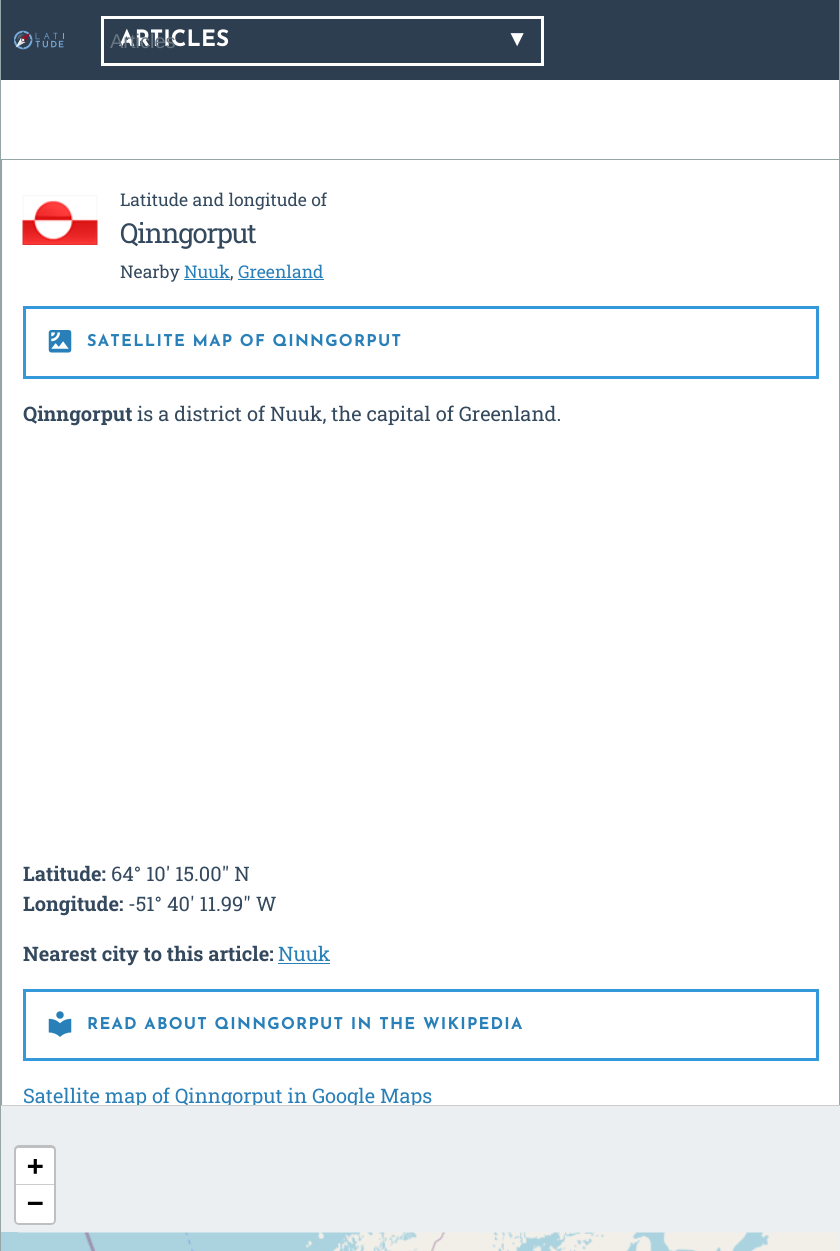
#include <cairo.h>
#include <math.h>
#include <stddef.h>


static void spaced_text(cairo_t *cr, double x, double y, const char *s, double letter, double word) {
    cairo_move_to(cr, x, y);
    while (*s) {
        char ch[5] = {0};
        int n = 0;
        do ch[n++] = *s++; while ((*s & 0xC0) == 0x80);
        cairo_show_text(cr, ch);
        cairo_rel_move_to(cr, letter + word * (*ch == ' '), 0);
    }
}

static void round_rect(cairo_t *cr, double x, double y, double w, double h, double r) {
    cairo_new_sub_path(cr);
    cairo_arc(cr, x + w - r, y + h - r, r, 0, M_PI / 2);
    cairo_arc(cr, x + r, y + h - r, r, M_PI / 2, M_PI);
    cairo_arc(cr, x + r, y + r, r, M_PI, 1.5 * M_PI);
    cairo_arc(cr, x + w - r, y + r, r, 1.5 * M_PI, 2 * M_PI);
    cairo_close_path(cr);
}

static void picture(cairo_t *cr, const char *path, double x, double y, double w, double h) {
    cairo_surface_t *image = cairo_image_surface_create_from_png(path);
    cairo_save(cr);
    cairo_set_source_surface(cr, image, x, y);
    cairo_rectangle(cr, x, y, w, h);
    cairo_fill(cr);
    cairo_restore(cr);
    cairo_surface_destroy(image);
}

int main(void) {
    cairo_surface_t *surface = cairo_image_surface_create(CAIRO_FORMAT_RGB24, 840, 1251);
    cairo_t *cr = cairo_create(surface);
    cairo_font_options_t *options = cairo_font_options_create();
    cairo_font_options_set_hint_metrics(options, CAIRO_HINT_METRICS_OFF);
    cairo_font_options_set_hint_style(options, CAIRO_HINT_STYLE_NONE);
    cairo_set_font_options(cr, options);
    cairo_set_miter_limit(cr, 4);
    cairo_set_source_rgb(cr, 0.98, 0.98, 0.98);
    cairo_paint(cr);
    cairo_set_source_rgb(cr, 0.584, 0.647, 0.651);
    cairo_rectangle(cr, 839, 0, 1, 1105);
    cairo_fill(cr);
    cairo_rectangle(cr, 0, 0, 1, 1251);
    cairo_fill(cr);
    cairo_set_source_rgb(cr, 0.173, 0.243, 0.314);
    cairo_rectangle(cr, 1, 0, 838, 80);
    cairo_fill(cr);
    picture(cr, "img1.png", 14, 30, 50, 20);
    cairo_rectangle(cr, 102.5, 17.5, 440, 47);
    cairo_set_source_rgb(cr, 1, 1, 1);
    cairo_set_line_width(cr, 3);
    cairo_stroke(cr);
    cairo_select_font_face(cr, "Josefin Sans", CAIRO_FONT_SLANT_NORMAL, CAIRO_FONT_WEIGHT_BOLD);
    cairo_set_font_size(cr, 22.5);
    cairo_move_to(cr, 119, 46);
    cairo_show_text(cr, "ARTICLES");
    cairo_select_font_face(cr, "Liberation Sans", CAIRO_FONT_SLANT_NORMAL, CAIRO_FONT_WEIGHT_BOLD);
    cairo_move_to(cr, 506, 46);
    cairo_show_text(cr, "▼");
    cairo_select_font_face(cr, "Liberation Sans", CAIRO_FONT_SLANT_NORMAL, CAIRO_FONT_WEIGHT_NORMAL);
    cairo_set_font_size(cr, 20);
    cairo_set_source_rgb(cr, 0.408, 0.459, 0.51);
    cairo_move_to(cr, 110, 48);
    cairo_show_text(cr, "Articles");
    cairo_set_source_rgb(cr, 1, 1, 1);
    cairo_rectangle(cr, 1, 80, 838, 79);
    cairo_fill(cr);
    cairo_set_source_rgb(cr, 0.584, 0.647, 0.651);
    cairo_rectangle(cr, 1, 159, 838, 1);
    cairo_fill(cr);
    cairo_rectangle(cr, 1, 160, 1, 945);
    cairo_fill(cr);
    cairo_set_source_rgb(cr, 1, 1, 1);
    cairo_rectangle(cr, 3, 160, 836, 945);
    cairo_fill(cr);
    picture(cr, "img2.png", 22, 195, 76, 50);
    cairo_select_font_face(cr, "Roboto Slab", CAIRO_FONT_SLANT_NORMAL, CAIRO_FONT_WEIGHT_NORMAL);
    cairo_set_font_size(cr, 17.5);
    cairo_set_source_rgb(cr, 0.204, 0.286, 0.369);
    cairo_move_to(cr, 120, 206);
    cairo_show_text(cr, "Latitude and longitude of");
    cairo_set_font_size(cr, 27.5);
    spaced_text(cr, 120, 243, "Qinngorput", -1.25, 0);
    cairo_set_font_size(cr, 17.5);
    cairo_move_to(cr, 120, 278);
    cairo_show_text(cr, "Nearby");
    cairo_set_source_rgb(cr, 0.161, 0.502, 0.725);
    cairo_move_to(cr, 184, 278);
    cairo_show_text(cr, "Nuuk");
    cairo_set_source_rgb(cr, 0.204, 0.286, 0.369);
    cairo_move_to(cr, 230, 278);
    cairo_show_text(cr, ",");
    cairo_set_source_rgb(cr, 0.161, 0.502, 0.725);
    cairo_rectangle(cr, 184, 279, 46, 1);
    cairo_fill(cr);
    cairo_rectangle(cr, 238, 279, 86, 1);
    cairo_fill(cr);
    cairo_move_to(cr, 238, 278);
    cairo_show_text(cr, "Greenland");
    cairo_rectangle(cr, 24.5, 307.5, 793, 70);
    cairo_set_source_rgb(cr, 0.204, 0.596, 0.859);
    cairo_stroke(cr);
    picture(cr, "img3.png", 48, 330, 24, 23);
    cairo_select_font_face(cr, "Josefin Sans", CAIRO_FONT_SLANT_NORMAL, CAIRO_FONT_WEIGHT_BOLD);
    cairo_set_font_size(cr, 16.25);
    cairo_set_source_rgb(cr, 0.161, 0.502, 0.725);
    spaced_text(cr, 87, 346, "SATELLITE MAP OF QINNGORPUT", 1.25, 0);
    cairo_select_font_face(cr, "Roboto Slab", CAIRO_FONT_SLANT_NORMAL, CAIRO_FONT_WEIGHT_BOLD);
    cairo_set_font_size(cr, 20);
    cairo_set_source_rgb(cr, 0.204, 0.286, 0.369);
    cairo_move_to(cr, 23, 421);
    cairo_show_text(cr, "Qinngorput");
    cairo_select_font_face(cr, "Roboto Slab", CAIRO_FONT_SLANT_NORMAL, CAIRO_FONT_WEIGHT_NORMAL);
    cairo_move_to(cr, 137, 421);
    cairo_show_text(cr, "is a district of Nuuk, the capital of Greenland.");
    cairo_select_font_face(cr, "Roboto Slab", CAIRO_FONT_SLANT_NORMAL, CAIRO_FONT_WEIGHT_BOLD);
    cairo_move_to(cr, 23, 881);
    cairo_show_text(cr, "Latitude:");
    cairo_select_font_face(cr, "Roboto Slab", CAIRO_FONT_SLANT_NORMAL, CAIRO_FONT_WEIGHT_NORMAL);
    cairo_move_to(cr, 111, 881);
    cairo_show_text(cr, "64° 10' 15.00\" N");
    cairo_select_font_face(cr, "Roboto Slab", CAIRO_FONT_SLANT_NORMAL, CAIRO_FONT_WEIGHT_BOLD);
    cairo_move_to(cr, 23, 911);
    cairo_show_text(cr, "Longitude:");
    cairo_select_font_face(cr, "Roboto Slab", CAIRO_FONT_SLANT_NORMAL, CAIRO_FONT_WEIGHT_NORMAL);
    cairo_move_to(cr, 128, 911);
    cairo_show_text(cr, "-51° 40' 11.99\" W");
    cairo_select_font_face(cr, "Roboto Slab", CAIRO_FONT_SLANT_NORMAL, CAIRO_FONT_WEIGHT_BOLD);
    cairo_move_to(cr, 23, 961);
    cairo_show_text(cr, "Nearest city to this article:");
    cairo_select_font_face(cr, "Roboto Slab", CAIRO_FONT_SLANT_NORMAL, CAIRO_FONT_WEIGHT_NORMAL);
    cairo_set_source_rgb(cr, 0.161, 0.502, 0.725);
    cairo_move_to(cr, 278, 961);
    cairo_show_text(cr, "Nuuk");
    cairo_rectangle(cr, 278, 963, 52, 1);
    cairo_fill(cr);
    cairo_rectangle(cr, 24.5, 990.5, 793, 69);
    cairo_set_source_rgb(cr, 0.204, 0.596, 0.859);
    cairo_stroke(cr);
    picture(cr, "img4.png", 48, 1011, 24, 26);
    cairo_select_font_face(cr, "Josefin Sans", CAIRO_FONT_SLANT_NORMAL, CAIRO_FONT_WEIGHT_BOLD);
    cairo_set_font_size(cr, 16.25);
    cairo_set_source_rgb(cr, 0.161, 0.502, 0.725);
    spaced_text(cr, 87, 1029, "READ ABOUT QINNGORPUT IN THE WIKIPEDIA", 1.25, 0);
    cairo_select_font_face(cr, "Roboto Slab", CAIRO_FONT_SLANT_NORMAL, CAIRO_FONT_WEIGHT_NORMAL);
    cairo_set_font_size(cr, 20);
    cairo_move_to(cr, 23, 1103);
    cairo_show_text(cr, "Satellite map of Qinngorput in Google Maps");
    cairo_set_source_rgb(cr, 0.925, 0.937, 0.945);
    cairo_rectangle(cr, 1, 1106, 839, 145);
    cairo_fill(cr);
    cairo_set_source_rgb(cr, 0.8, 0.8, 0.8);
    cairo_rectangle(cr, 1, 1105, 839, 1);
    cairo_fill(cr);
    round_rect(cr, 15.5, 1146.5, 39, 77, 3.5);
    cairo_set_source_rgb(cr, 0.741, 0.749, 0.757);
    cairo_stroke(cr);
    cairo_set_source_rgb(cr, 1, 1, 1);
    cairo_new_path(cr);
    cairo_move_to(cr, 18.5, 1148);
    cairo_line_to(cr, 51.5, 1148);
    cairo_curve_to(cr, 53, 1148, 54, 1149, 54, 1150.5);
    cairo_line_to(cr, 54, 1185);
    cairo_line_to(cr, 16, 1185);
    cairo_line_to(cr, 16, 1150.5);
    cairo_curve_to(cr, 16, 1149, 17, 1148, 18.5, 1148);
    cairo_close_path(cr);
    cairo_fill(cr);
    cairo_set_source_rgb(cr, 0.8, 0.8, 0.8);
    cairo_rectangle(cr, 16, 1184, 38, 1);
    cairo_fill(cr);
    cairo_select_font_face(cr, "DejaVu Sans Mono", CAIRO_FONT_SLANT_NORMAL, CAIRO_FONT_WEIGHT_BOLD);
    cairo_set_font_size(cr, 27.5);
    cairo_set_source_rgb(cr, 0, 0, 0);
    cairo_move_to(cr, 27, 1175);
    cairo_show_text(cr, "+");
    cairo_set_source_rgb(cr, 1, 1, 1);
    cairo_new_path(cr);
    cairo_move_to(cr, 16, 1185);
    cairo_line_to(cr, 54, 1185);
    cairo_line_to(cr, 54, 1220.5);
    cairo_curve_to(cr, 54, 1222, 53, 1223, 51.5, 1223);
    cairo_line_to(cr, 18.5, 1223);
    cairo_curve_to(cr, 17, 1223, 16, 1222, 16, 1220.5);
    cairo_close_path(cr);
    cairo_fill(cr);
    cairo_set_source_rgb(cr, 0, 0, 0);
    cairo_move_to(cr, 27, 1212);
    cairo_show_text(cr, "−");
    cairo_set_source_rgb(cr, 0.667, 0.827, 0.875);
    cairo_rectangle(cr, 1, 1232, 17, 19);
    cairo_fill(cr);
    picture(cr, "img5.png", 18, 1232, 320, 19);
    picture(cr, "img6.png", 338, 1232, 320, 19);
    picture(cr, "img7.png", 658, 1232, 181, 19);
    cairo_surface_write_to_png(surface, "page.png");
    cairo_font_options_destroy(options);
    cairo_destroy(cr);
    cairo_surface_destroy(surface);
    return 0;
}
